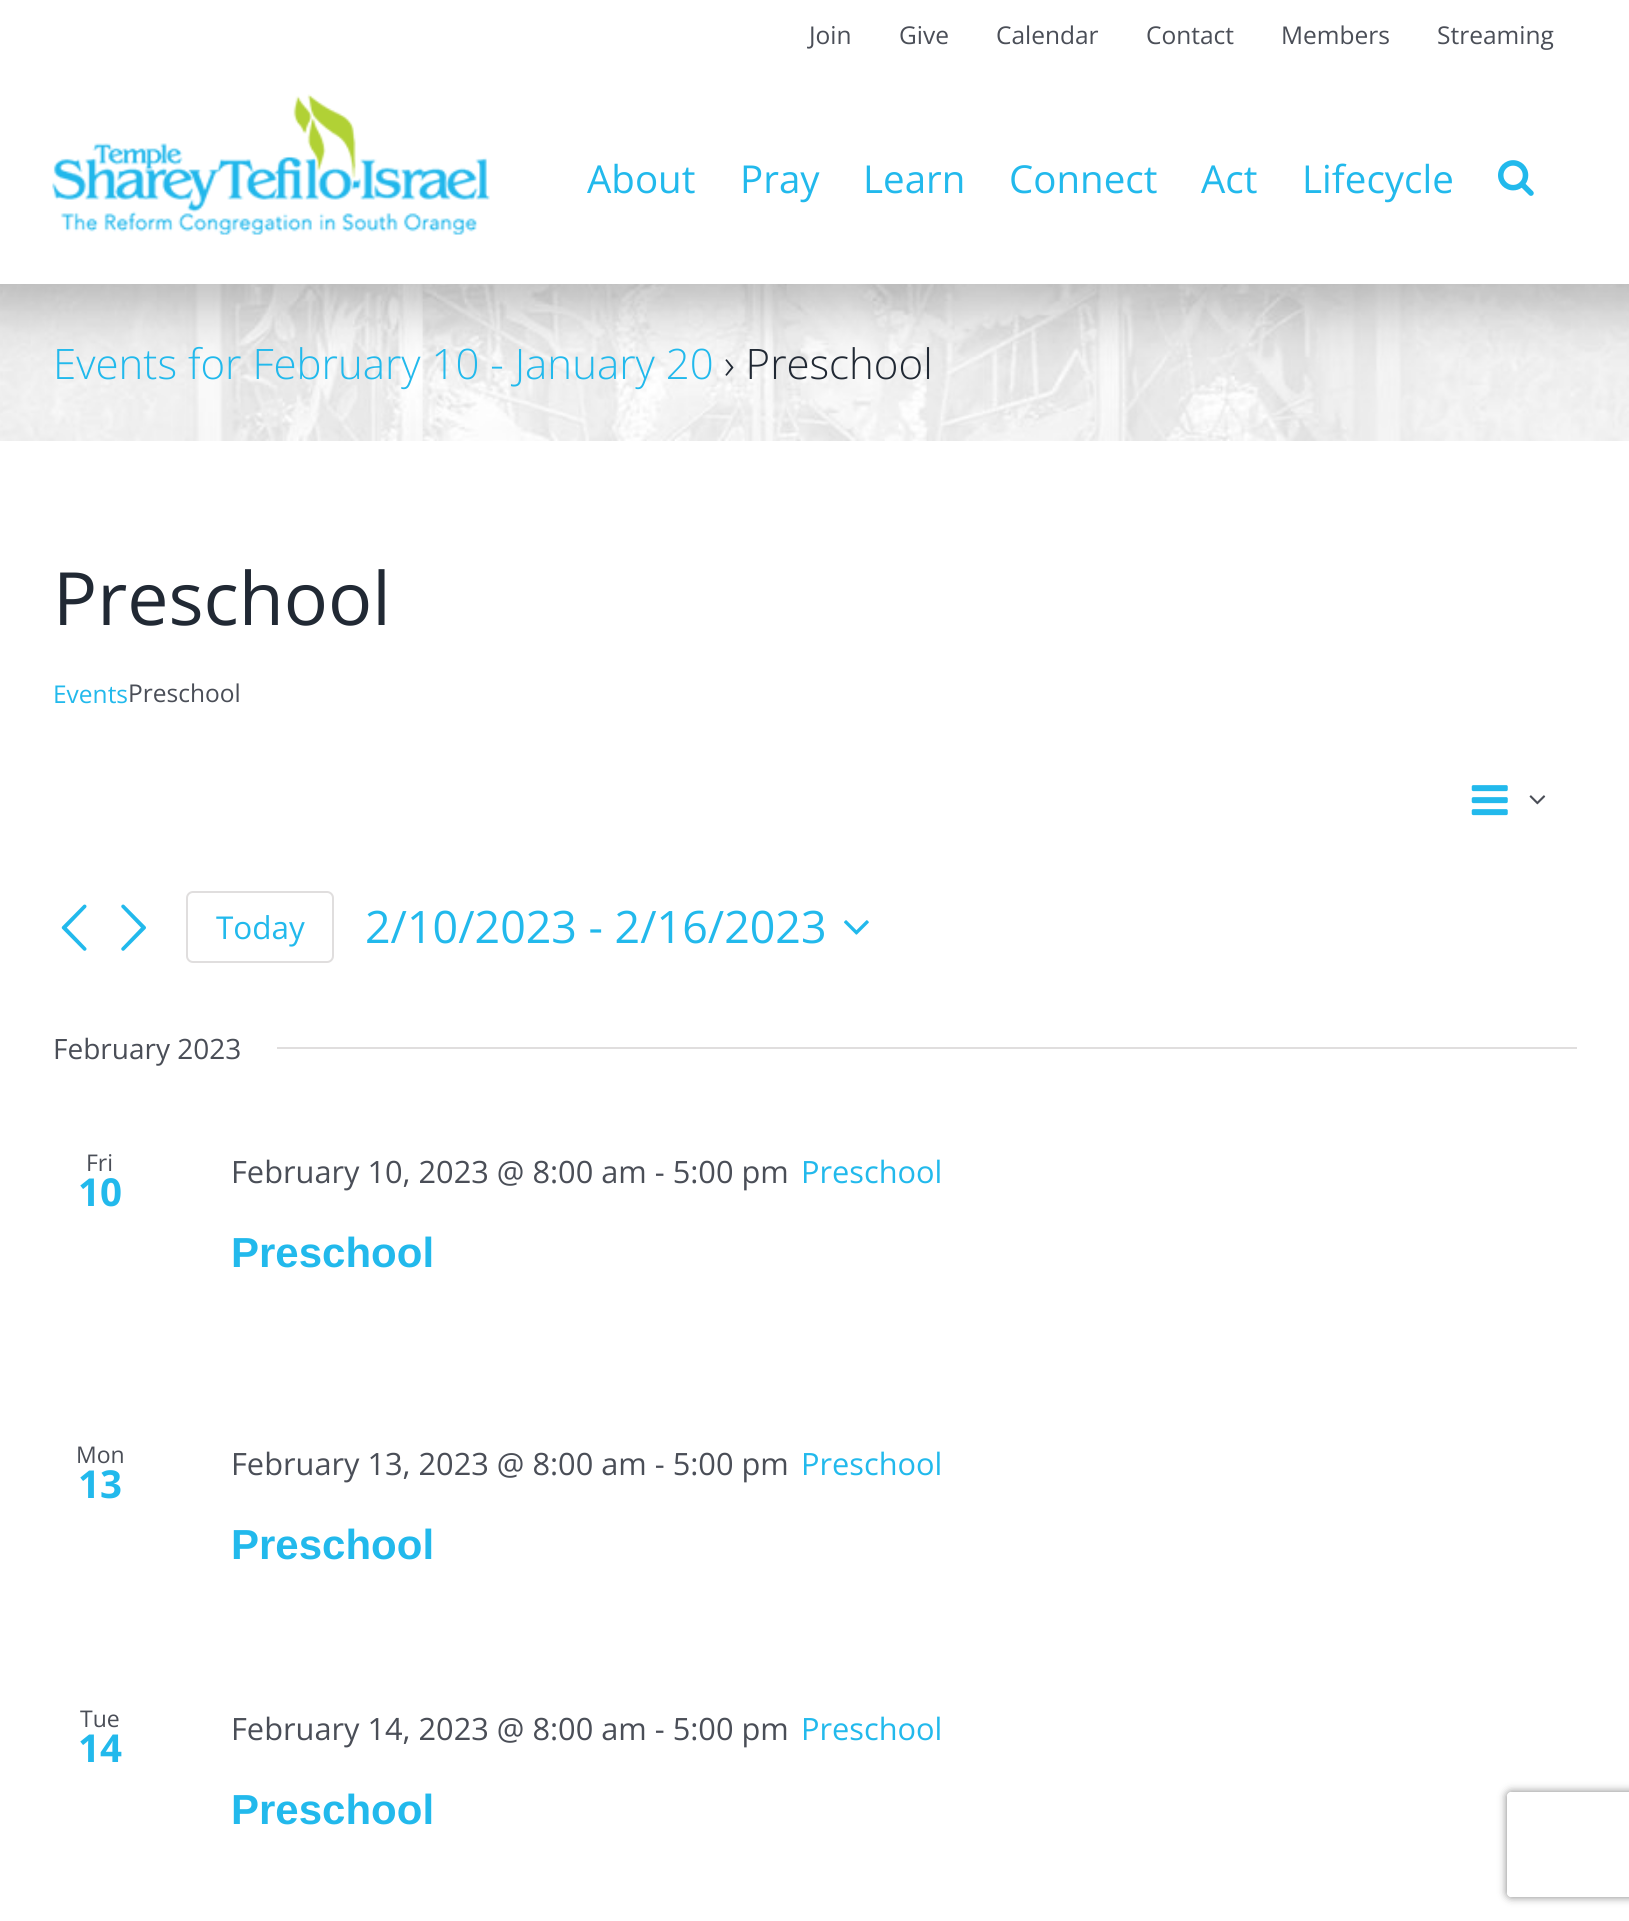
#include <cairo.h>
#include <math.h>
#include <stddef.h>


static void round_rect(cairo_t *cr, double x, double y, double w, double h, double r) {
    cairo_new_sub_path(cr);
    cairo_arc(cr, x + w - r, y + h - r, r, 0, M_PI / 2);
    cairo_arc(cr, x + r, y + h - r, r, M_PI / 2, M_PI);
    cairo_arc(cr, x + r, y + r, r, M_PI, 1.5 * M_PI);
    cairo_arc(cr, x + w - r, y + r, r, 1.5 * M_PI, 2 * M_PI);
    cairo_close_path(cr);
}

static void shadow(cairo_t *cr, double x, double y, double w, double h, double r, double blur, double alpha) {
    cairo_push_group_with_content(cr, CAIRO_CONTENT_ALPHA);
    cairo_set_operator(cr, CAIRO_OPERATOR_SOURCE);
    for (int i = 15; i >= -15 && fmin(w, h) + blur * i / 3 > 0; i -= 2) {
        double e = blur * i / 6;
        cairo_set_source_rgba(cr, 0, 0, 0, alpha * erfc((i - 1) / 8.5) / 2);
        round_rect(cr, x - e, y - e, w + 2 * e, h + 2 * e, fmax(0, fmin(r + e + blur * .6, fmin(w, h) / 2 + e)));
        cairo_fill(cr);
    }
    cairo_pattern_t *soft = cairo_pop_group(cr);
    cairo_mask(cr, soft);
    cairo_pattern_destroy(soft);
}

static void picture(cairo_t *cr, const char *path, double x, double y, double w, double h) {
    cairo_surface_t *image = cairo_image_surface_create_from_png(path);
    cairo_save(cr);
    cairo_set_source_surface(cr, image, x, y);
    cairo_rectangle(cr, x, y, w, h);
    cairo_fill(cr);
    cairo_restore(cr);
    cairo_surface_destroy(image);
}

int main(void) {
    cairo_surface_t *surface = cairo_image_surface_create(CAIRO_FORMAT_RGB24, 1629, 1921);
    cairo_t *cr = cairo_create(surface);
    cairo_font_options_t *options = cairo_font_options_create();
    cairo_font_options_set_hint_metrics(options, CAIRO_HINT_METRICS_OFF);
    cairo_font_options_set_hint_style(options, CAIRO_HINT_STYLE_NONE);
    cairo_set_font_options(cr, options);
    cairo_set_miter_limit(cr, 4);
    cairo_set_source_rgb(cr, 1, 1, 1);
    cairo_paint(cr);
    cairo_select_font_face(cr, "Open Sans", CAIRO_FONT_SLANT_NORMAL, CAIRO_FONT_WEIGHT_NORMAL);
    cairo_set_font_size(cr, 24.5);
    cairo_set_source_rgb(cr, 0.29, 0.306, 0.341);
    cairo_move_to(cr, 809, 44);
    cairo_show_text(cr, "Join");
    cairo_move_to(cr, 899, 44);
    cairo_show_text(cr, "Give");
    cairo_move_to(cr, 996, 44);
    cairo_show_text(cr, "Calendar");
    cairo_move_to(cr, 1146, 44);
    cairo_show_text(cr, "Contact");
    cairo_move_to(cr, 1281, 44);
    cairo_show_text(cr, "Members");
    cairo_move_to(cr, 1437, 44);
    cairo_show_text(cr, "Streaming");
    picture(cr, "img1.png", 52, 94, 438, 141);
    cairo_set_font_size(cr, 38.5);
    cairo_set_source_rgb(cr, 0.133, 0.725, 0.925);
    cairo_move_to(cr, 587, 193);
    cairo_show_text(cr, "About");
    cairo_move_to(cr, 740, 193);
    cairo_show_text(cr, "Pray");
    cairo_move_to(cr, 863, 193);
    cairo_show_text(cr, "Learn");
    cairo_move_to(cr, 1009, 193);
    cairo_show_text(cr, "Connect");
    cairo_move_to(cr, 1201, 193);
    cairo_show_text(cr, "Act");
    cairo_move_to(cr, 1302, 193);
    cairo_show_text(cr, "Lifecycle");
    picture(cr, "img2.png", 1498, 160, 36, 36);
    picture(cr, "img3.png", 0, 284, 1629, 157);
    cairo_select_font_face(cr, "Open Sans Light", CAIRO_FONT_SLANT_NORMAL, CAIRO_FONT_WEIGHT_NORMAL);
    cairo_set_font_size(cr, 42);
    cairo_move_to(cr, 53, 379);
    cairo_show_text(cr, "Events for February 10 - January 20");
    cairo_set_source_rgb(cr, 0.129, 0.161, 0.204);
    cairo_move_to(cr, 724, 379);
    cairo_show_text(cr, "› Preschool");
    cairo_select_font_face(cr, "Open Sans", CAIRO_FONT_SLANT_NORMAL, CAIRO_FONT_WEIGHT_NORMAL);
    cairo_set_font_size(cr, 73.5);
    cairo_move_to(cr, 53, 625);
    cairo_show_text(cr, "Preschool");
    cairo_set_font_size(cr, 24.5);
    cairo_set_source_rgb(cr, 0.133, 0.725, 0.925);
    cairo_move_to(cr, 53, 703);
    cairo_show_text(cr, "Events");
    cairo_set_source_rgb(cr, 0.29, 0.306, 0.341);
    cairo_move_to(cr, 128, 702);
    cairo_show_text(cr, "Preschool");
    picture(cr, "img4.png", 1471, 785, 37, 31);
    picture(cr, "img5.png", 1529, 795, 17, 10);
    picture(cr, "img6.png", 61, 904, 26, 47);
    picture(cr, "img7.png", 121, 904, 25, 47);
    round_rect(cr, 187, 892, 146, 70, 6);
    cairo_set_source_rgb(cr, 0.878, 0.871, 0.871);
    cairo_stroke(cr);
    cairo_set_font_size(cr, 31.5);
    cairo_set_source_rgb(cr, 0.133, 0.725, 0.925);
    cairo_move_to(cr, 216, 939);
    cairo_show_text(cr, "Today");
    cairo_set_font_size(cr, 44.75);
    cairo_move_to(cr, 365, 943);
    cairo_show_text(cr, "2/10/2023 - 2/16/2023");
    picture(cr, "img8.png", 844, 920, 25, 15);
    cairo_set_font_size(cr, 28);
    cairo_set_source_rgb(cr, 0.29, 0.306, 0.341);
    cairo_move_to(cr, 53, 1059);
    cairo_show_text(cr, "February 2023");
    cairo_set_source_rgb(cr, 0.878, 0.871, 0.871);
    cairo_rectangle(cr, 277, 1047, 1300, 2);
    cairo_fill(cr);
    cairo_set_font_size(cr, 23);
    cairo_set_source_rgb(cr, 0.29, 0.306, 0.341);
    cairo_move_to(cr, 86, 1171);
    cairo_show_text(cr, "Fri");
    cairo_select_font_face(cr, "Open Sans", CAIRO_FONT_SLANT_NORMAL, CAIRO_FONT_WEIGHT_BOLD);
    cairo_set_font_size(cr, 38.5);
    cairo_set_source_rgb(cr, 0.133, 0.725, 0.925);
    cairo_move_to(cr, 78, 1206);
    cairo_show_text(cr, "10");
    cairo_select_font_face(cr, "Open Sans", CAIRO_FONT_SLANT_NORMAL, CAIRO_FONT_WEIGHT_NORMAL);
    cairo_set_font_size(cr, 30.75);
    cairo_set_source_rgb(cr, 0.29, 0.306, 0.341);
    cairo_move_to(cr, 231, 1183);
    cairo_show_text(cr, "February 10, 2023 @ 8:00 am - 5:00 pm");
    cairo_set_source_rgb(cr, 0.133, 0.725, 0.925);
    cairo_move_to(cr, 801, 1183);
    cairo_show_text(cr, "Preschool");
    cairo_select_font_face(cr, "Liberation Sans", CAIRO_FONT_SLANT_NORMAL, CAIRO_FONT_WEIGHT_BOLD);
    cairo_set_font_size(cr, 42);
    cairo_move_to(cr, 231, 1267);
    cairo_show_text(cr, "Preschool");
    cairo_select_font_face(cr, "Open Sans", CAIRO_FONT_SLANT_NORMAL, CAIRO_FONT_WEIGHT_NORMAL);
    cairo_set_font_size(cr, 23);
    cairo_set_source_rgb(cr, 0.29, 0.306, 0.341);
    cairo_move_to(cr, 76, 1463);
    cairo_show_text(cr, "Mon");
    cairo_select_font_face(cr, "Open Sans", CAIRO_FONT_SLANT_NORMAL, CAIRO_FONT_WEIGHT_BOLD);
    cairo_set_font_size(cr, 38.5);
    cairo_set_source_rgb(cr, 0.133, 0.725, 0.925);
    cairo_move_to(cr, 78, 1498);
    cairo_show_text(cr, "13");
    cairo_select_font_face(cr, "Open Sans", CAIRO_FONT_SLANT_NORMAL, CAIRO_FONT_WEIGHT_NORMAL);
    cairo_set_font_size(cr, 30.75);
    cairo_set_source_rgb(cr, 0.29, 0.306, 0.341);
    cairo_move_to(cr, 231, 1475);
    cairo_show_text(cr, "February 13, 2023 @ 8:00 am - 5:00 pm");
    cairo_set_source_rgb(cr, 0.133, 0.725, 0.925);
    cairo_move_to(cr, 801, 1475);
    cairo_show_text(cr, "Preschool");
    cairo_select_font_face(cr, "Liberation Sans", CAIRO_FONT_SLANT_NORMAL, CAIRO_FONT_WEIGHT_BOLD);
    cairo_set_font_size(cr, 42);
    cairo_move_to(cr, 231, 1559);
    cairo_show_text(cr, "Preschool");
    cairo_select_font_face(cr, "Open Sans", CAIRO_FONT_SLANT_NORMAL, CAIRO_FONT_WEIGHT_NORMAL);
    cairo_set_font_size(cr, 23);
    cairo_set_source_rgb(cr, 0.29, 0.306, 0.341);
    cairo_move_to(cr, 80, 1727);
    cairo_show_text(cr, "Tue");
    cairo_select_font_face(cr, "Open Sans", CAIRO_FONT_SLANT_NORMAL, CAIRO_FONT_WEIGHT_BOLD);
    cairo_set_font_size(cr, 38.5);
    cairo_set_source_rgb(cr, 0.133, 0.725, 0.925);
    cairo_move_to(cr, 78, 1762);
    cairo_show_text(cr, "14");
    cairo_select_font_face(cr, "Open Sans", CAIRO_FONT_SLANT_NORMAL, CAIRO_FONT_WEIGHT_NORMAL);
    cairo_set_font_size(cr, 30.75);
    cairo_set_source_rgb(cr, 0.29, 0.306, 0.341);
    cairo_move_to(cr, 231, 1740);
    cairo_show_text(cr, "February 14, 2023 @ 8:00 am - 5:00 pm");
    cairo_set_source_rgb(cr, 0.133, 0.725, 0.925);
    cairo_move_to(cr, 801, 1740);
    cairo_show_text(cr, "Preschool");
    cairo_select_font_face(cr, "Liberation Sans", CAIRO_FONT_SLANT_NORMAL, CAIRO_FONT_WEIGHT_BOLD);
    cairo_set_font_size(cr, 42);
    cairo_move_to(cr, 231, 1824);
    cairo_show_text(cr, "Preschool");
    cairo_save(cr);
    cairo_set_fill_rule(cr, CAIRO_FILL_RULE_EVEN_ODD);
    cairo_new_path(cr);
    cairo_move_to(cr, 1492, 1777);
    cairo_line_to(cr, 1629, 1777);
    cairo_line_to(cr, 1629, 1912);
    cairo_line_to(cr, 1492, 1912);
    cairo_close_path(cr);
    cairo_move_to(cr, 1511, 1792);
    cairo_line_to(cr, 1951, 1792);
    cairo_curve_to(cr, 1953, 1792, 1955, 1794, 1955, 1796);
    cairo_line_to(cr, 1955, 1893);
    cairo_curve_to(cr, 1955, 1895, 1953, 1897, 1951, 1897);
    cairo_line_to(cr, 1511, 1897);
    cairo_curve_to(cr, 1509, 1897, 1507, 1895, 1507, 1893);
    cairo_line_to(cr, 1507, 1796);
    cairo_curve_to(cr, 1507, 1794, 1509, 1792, 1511, 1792);
    cairo_close_path(cr);
    cairo_clip(cr);
    cairo_set_source_rgb(cr, 0.502, 0.502, 0.502);
    shadow(cr, 1507, 1792, 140, 105, 4, 4.5, 1);
    cairo_restore(cr);
    cairo_surface_write_to_png(surface, "page.png");
    cairo_font_options_destroy(options);
    cairo_destroy(cr);
    cairo_surface_destroy(surface);
    return 0;
}
